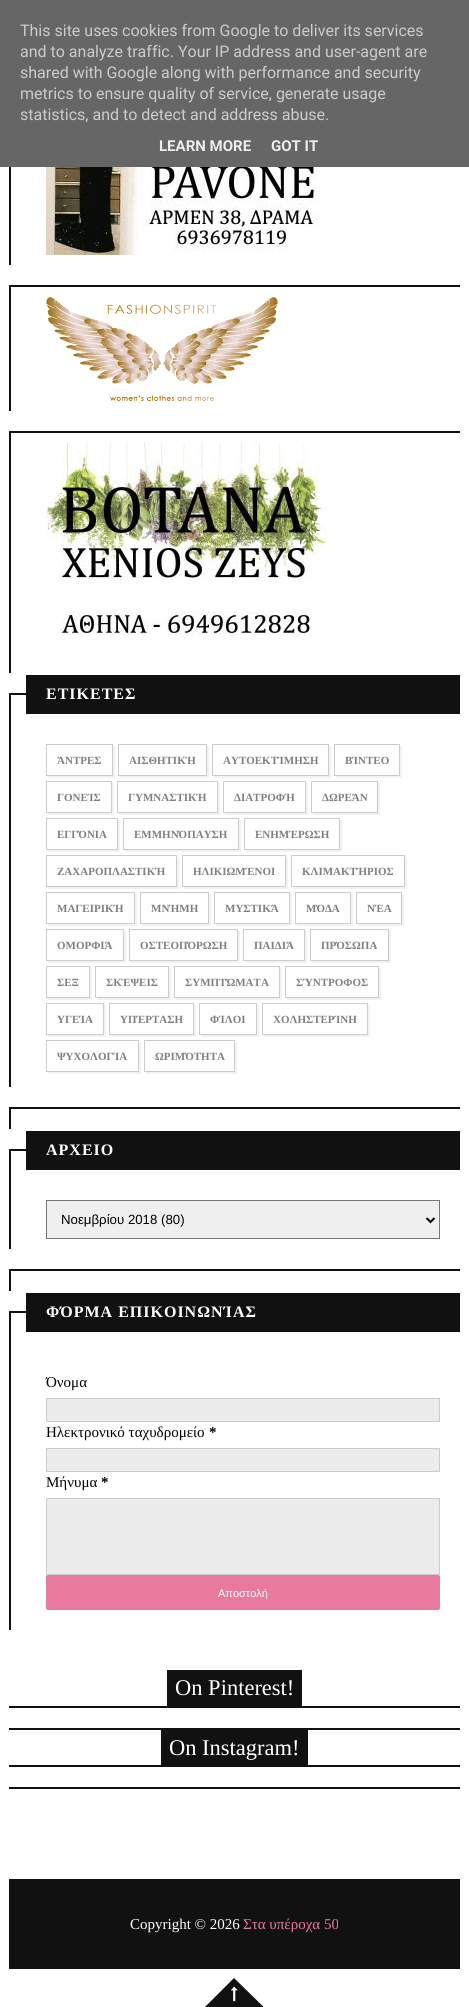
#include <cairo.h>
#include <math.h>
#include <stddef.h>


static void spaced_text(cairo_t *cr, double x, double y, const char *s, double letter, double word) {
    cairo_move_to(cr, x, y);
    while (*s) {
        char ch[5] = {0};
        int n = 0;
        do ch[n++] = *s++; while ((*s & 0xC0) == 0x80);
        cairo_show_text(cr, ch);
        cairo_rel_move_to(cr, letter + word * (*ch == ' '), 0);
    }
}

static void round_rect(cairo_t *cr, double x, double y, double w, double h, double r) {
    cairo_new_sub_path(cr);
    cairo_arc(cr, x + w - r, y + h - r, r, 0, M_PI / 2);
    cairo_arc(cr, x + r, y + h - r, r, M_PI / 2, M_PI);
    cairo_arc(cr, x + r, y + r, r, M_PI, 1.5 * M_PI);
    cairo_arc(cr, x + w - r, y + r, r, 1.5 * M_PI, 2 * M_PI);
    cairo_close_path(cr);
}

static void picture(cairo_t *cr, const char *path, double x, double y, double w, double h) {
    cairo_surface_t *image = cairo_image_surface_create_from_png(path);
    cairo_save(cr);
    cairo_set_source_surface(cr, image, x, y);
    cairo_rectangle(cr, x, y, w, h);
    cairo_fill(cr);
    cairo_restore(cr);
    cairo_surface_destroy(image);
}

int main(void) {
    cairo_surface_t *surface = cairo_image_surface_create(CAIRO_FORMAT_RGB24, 469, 2007);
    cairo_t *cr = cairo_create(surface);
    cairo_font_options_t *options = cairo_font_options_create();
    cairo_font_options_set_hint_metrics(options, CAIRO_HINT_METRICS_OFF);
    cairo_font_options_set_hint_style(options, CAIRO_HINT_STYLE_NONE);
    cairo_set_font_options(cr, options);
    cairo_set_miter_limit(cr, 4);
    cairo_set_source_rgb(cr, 1, 1, 1);
    cairo_paint(cr);
    cairo_set_source_rgb(cr, 0.4, 0.4, 0.4);
    cairo_rectangle(cr, 0, 0, 469, 167);
    cairo_fill(cr);
    cairo_select_font_face(cr, "Roboto", CAIRO_FONT_SLANT_NORMAL, CAIRO_FONT_WEIGHT_NORMAL);
    cairo_set_font_size(cr, 16);
    cairo_set_source_rgb(cr, 0.8, 0.8, 0.8);
    cairo_move_to(cr, 20, 36);
    cairo_show_text(cr, "This site uses cookies from Google to deliver its services");
    cairo_move_to(cr, 20, 57);
    cairo_show_text(cr, "and to analyze traffic. Your IP address and user-agent are");
    cairo_move_to(cr, 20, 78);
    cairo_show_text(cr, "shared with Google along with performance and security");
    cairo_move_to(cr, 20, 99);
    cairo_show_text(cr, "metrics to ensure quality of service, generate usage");
    cairo_move_to(cr, 20, 120);
    cairo_show_text(cr, "statistics, and to detect and address abuse.");
    cairo_select_font_face(cr, "Roboto", CAIRO_FONT_SLANT_NORMAL, CAIRO_FONT_WEIGHT_BOLD);
    cairo_set_font_size(cr, 15);
    cairo_set_source_rgb(cr, 0.933, 0.933, 0.933);
    cairo_move_to(cr, 159, 151);
    cairo_show_text(cr, "LEARN MORE");
    cairo_move_to(cr, 271, 151);
    cairo_show_text(cr, "GOT IT");
    cairo_set_source_rgb(cr, 0.067, 0.067, 0.067);
    cairo_rectangle(cr, 9, 167, 2, 98);
    cairo_fill(cr);
    picture(cr, "img1.png", 46, 167, 272, 88);
    cairo_rectangle(cr, 9, 285, 451, 2);
    cairo_fill(cr);
    cairo_rectangle(cr, 9, 285, 2, 126);
    cairo_fill(cr);
    picture(cr, "img2.png", 46, 297, 232, 104);
    cairo_rectangle(cr, 9, 431, 451, 2);
    cairo_fill(cr);
    cairo_rectangle(cr, 9, 431, 2, 242);
    cairo_fill(cr);
    picture(cr, "img3.png", 46, 443, 280, 192);
    cairo_rectangle(cr, 9, 693, 17, 2);
    cairo_fill(cr);
    cairo_rectangle(cr, 9, 693, 2, 394);
    cairo_fill(cr);
    cairo_rectangle(cr, 26, 675, 434, 39);
    cairo_fill(cr);
    cairo_select_font_face(cr, "Liberation Serif", CAIRO_FONT_SLANT_NORMAL, CAIRO_FONT_WEIGHT_BOLD);
    cairo_set_font_size(cr, 16);
    cairo_set_source_rgb(cr, 1, 1, 1);
    spaced_text(cr, 46, 699, "ΕΤΙΚΕΤΕΣ", 1, 0);
    cairo_set_source_rgb(cr, 0.949, 0.949, 0.949);
    cairo_new_path(cr);
    cairo_move_to(cr, 48, 776);
    cairo_line_to(cr, 48, 778);
    cairo_line_to(cr, 115, 778);
    cairo_line_to(cr, 115, 746);
    cairo_line_to(cr, 113, 746);
    cairo_line_to(cr, 113, 776);
    cairo_close_path(cr);
    cairo_fill(cr);
    cairo_rectangle(cr, 46.5, 744.5, 66, 31);
    cairo_set_source_rgb(cr, 0.8, 0.8, 0.8);
    cairo_set_line_width(cr, 1);
    cairo_stroke(cr);
    cairo_set_font_size(cr, 11);
    cairo_set_source_rgb(cr, 0.502, 0.502, 0.502);
    cairo_move_to(cr, 57, 764);
    cairo_show_text(cr, "ΆΝΤΡΕΣ");
    cairo_set_source_rgb(cr, 0.949, 0.949, 0.949);
    cairo_new_path(cr);
    cairo_move_to(cr, 120, 776);
    cairo_line_to(cr, 120, 778);
    cairo_line_to(cr, 209, 778);
    cairo_line_to(cr, 209, 746);
    cairo_line_to(cr, 207, 746);
    cairo_line_to(cr, 207, 776);
    cairo_close_path(cr);
    cairo_fill(cr);
    cairo_rectangle(cr, 118.5, 744.5, 88, 31);
    cairo_set_source_rgb(cr, 0.8, 0.8, 0.8);
    cairo_stroke(cr);
    cairo_set_source_rgb(cr, 0.502, 0.502, 0.502);
    cairo_move_to(cr, 129, 764);
    cairo_show_text(cr, "ΑΙΣΘΗΤΙΚΉ");
    cairo_set_source_rgb(cr, 0.949, 0.949, 0.949);
    cairo_new_path(cr);
    cairo_move_to(cr, 214, 776);
    cairo_line_to(cr, 214, 778);
    cairo_line_to(cr, 331, 778);
    cairo_line_to(cr, 331, 746);
    cairo_line_to(cr, 329, 746);
    cairo_line_to(cr, 329, 776);
    cairo_close_path(cr);
    cairo_fill(cr);
    cairo_rectangle(cr, 212.5, 744.5, 116, 31);
    cairo_set_source_rgb(cr, 0.8, 0.8, 0.8);
    cairo_stroke(cr);
    cairo_set_source_rgb(cr, 0.502, 0.502, 0.502);
    cairo_move_to(cr, 223, 764);
    cairo_show_text(cr, "ΑΥΤΟΕΚΤΊΜΗΣΗ");
    cairo_set_source_rgb(cr, 0.949, 0.949, 0.949);
    cairo_new_path(cr);
    cairo_move_to(cr, 336, 776);
    cairo_line_to(cr, 336, 778);
    cairo_line_to(cr, 402, 778);
    cairo_line_to(cr, 402, 746);
    cairo_line_to(cr, 400, 746);
    cairo_line_to(cr, 400, 776);
    cairo_close_path(cr);
    cairo_fill(cr);
    cairo_rectangle(cr, 334.5, 744.5, 65, 31);
    cairo_set_source_rgb(cr, 0.8, 0.8, 0.8);
    cairo_stroke(cr);
    cairo_set_source_rgb(cr, 0.502, 0.502, 0.502);
    cairo_move_to(cr, 345, 764);
    cairo_show_text(cr, "ΒΊΝΤΕΟ");
    cairo_set_source_rgb(cr, 0.949, 0.949, 0.949);
    cairo_new_path(cr);
    cairo_move_to(cr, 48, 813);
    cairo_line_to(cr, 48, 815);
    cairo_line_to(cr, 114, 815);
    cairo_line_to(cr, 114, 783);
    cairo_line_to(cr, 112, 783);
    cairo_line_to(cr, 112, 813);
    cairo_close_path(cr);
    cairo_fill(cr);
    cairo_rectangle(cr, 46.5, 781.5, 65, 31);
    cairo_set_source_rgb(cr, 0.8, 0.8, 0.8);
    cairo_stroke(cr);
    cairo_set_source_rgb(cr, 0.502, 0.502, 0.502);
    cairo_move_to(cr, 57, 801);
    cairo_show_text(cr, "ΓΟΝΕΊΣ");
    cairo_set_source_rgb(cr, 0.949, 0.949, 0.949);
    cairo_new_path(cr);
    cairo_move_to(cr, 119, 813);
    cairo_line_to(cr, 119, 815);
    cairo_line_to(cr, 220, 815);
    cairo_line_to(cr, 220, 783);
    cairo_line_to(cr, 218, 783);
    cairo_line_to(cr, 218, 813);
    cairo_close_path(cr);
    cairo_fill(cr);
    cairo_rectangle(cr, 117.5, 781.5, 100, 31);
    cairo_set_source_rgb(cr, 0.8, 0.8, 0.8);
    cairo_stroke(cr);
    cairo_set_source_rgb(cr, 0.502, 0.502, 0.502);
    cairo_move_to(cr, 128, 801);
    cairo_show_text(cr, "ΓΥΜΝΑΣΤΙΚΉ");
    cairo_set_source_rgb(cr, 0.949, 0.949, 0.949);
    cairo_new_path(cr);
    cairo_move_to(cr, 225, 813);
    cairo_line_to(cr, 225, 815);
    cairo_line_to(cr, 308, 815);
    cairo_line_to(cr, 308, 783);
    cairo_line_to(cr, 306, 783);
    cairo_line_to(cr, 306, 813);
    cairo_close_path(cr);
    cairo_fill(cr);
    cairo_rectangle(cr, 223.5, 781.5, 82, 31);
    cairo_set_source_rgb(cr, 0.8, 0.8, 0.8);
    cairo_stroke(cr);
    cairo_set_source_rgb(cr, 0.502, 0.502, 0.502);
    cairo_move_to(cr, 234, 801);
    cairo_show_text(cr, "ΔΙΑΤΡΟΦΉ");
    cairo_set_source_rgb(cr, 0.949, 0.949, 0.949);
    cairo_new_path(cr);
    cairo_move_to(cr, 313, 813);
    cairo_line_to(cr, 313, 815);
    cairo_line_to(cr, 380, 815);
    cairo_line_to(cr, 380, 783);
    cairo_line_to(cr, 378, 783);
    cairo_line_to(cr, 378, 813);
    cairo_close_path(cr);
    cairo_fill(cr);
    cairo_rectangle(cr, 311.5, 781.5, 66, 31);
    cairo_set_source_rgb(cr, 0.8, 0.8, 0.8);
    cairo_stroke(cr);
    cairo_set_source_rgb(cr, 0.502, 0.502, 0.502);
    cairo_move_to(cr, 322, 801);
    cairo_show_text(cr, "ΔΩΡΕΆΝ");
    cairo_set_source_rgb(cr, 0.949, 0.949, 0.949);
    cairo_new_path(cr);
    cairo_move_to(cr, 48, 850);
    cairo_line_to(cr, 48, 852);
    cairo_line_to(cr, 120, 852);
    cairo_line_to(cr, 120, 820);
    cairo_line_to(cr, 118, 820);
    cairo_line_to(cr, 118, 850);
    cairo_close_path(cr);
    cairo_fill(cr);
    cairo_rectangle(cr, 46.5, 818.5, 71, 31);
    cairo_set_source_rgb(cr, 0.8, 0.8, 0.8);
    cairo_stroke(cr);
    cairo_set_source_rgb(cr, 0.502, 0.502, 0.502);
    cairo_move_to(cr, 57, 838);
    cairo_show_text(cr, "ΕΓΓΌΝΙΑ");
    cairo_set_source_rgb(cr, 0.949, 0.949, 0.949);
    cairo_new_path(cr);
    cairo_move_to(cr, 125, 850);
    cairo_line_to(cr, 125, 852);
    cairo_line_to(cr, 241, 852);
    cairo_line_to(cr, 241, 820);
    cairo_line_to(cr, 239, 820);
    cairo_line_to(cr, 239, 850);
    cairo_close_path(cr);
    cairo_fill(cr);
    cairo_rectangle(cr, 123.5, 818.5, 115, 31);
    cairo_set_source_rgb(cr, 0.8, 0.8, 0.8);
    cairo_stroke(cr);
    cairo_set_source_rgb(cr, 0.502, 0.502, 0.502);
    cairo_move_to(cr, 134, 838);
    cairo_show_text(cr, "ΕΜΜΗΝΌΠΑΥΣΗ");
    cairo_set_source_rgb(cr, 0.949, 0.949, 0.949);
    cairo_new_path(cr);
    cairo_move_to(cr, 246, 850);
    cairo_line_to(cr, 246, 852);
    cairo_line_to(cr, 342, 852);
    cairo_line_to(cr, 342, 820);
    cairo_line_to(cr, 340, 820);
    cairo_line_to(cr, 340, 850);
    cairo_close_path(cr);
    cairo_fill(cr);
    cairo_rectangle(cr, 244.5, 818.5, 95, 31);
    cairo_set_source_rgb(cr, 0.8, 0.8, 0.8);
    cairo_stroke(cr);
    cairo_set_source_rgb(cr, 0.502, 0.502, 0.502);
    cairo_move_to(cr, 255, 838);
    cairo_show_text(cr, "ΕΝΗΜΈΡΩΣΗ");
    cairo_set_source_rgb(cr, 0.949, 0.949, 0.949);
    cairo_new_path(cr);
    cairo_move_to(cr, 48, 887);
    cairo_line_to(cr, 48, 889);
    cairo_line_to(cr, 179, 889);
    cairo_line_to(cr, 179, 857);
    cairo_line_to(cr, 177, 857);
    cairo_line_to(cr, 177, 887);
    cairo_close_path(cr);
    cairo_fill(cr);
    cairo_rectangle(cr, 46.5, 855.5, 130, 31);
    cairo_set_source_rgb(cr, 0.8, 0.8, 0.8);
    cairo_stroke(cr);
    cairo_set_source_rgb(cr, 0.502, 0.502, 0.502);
    cairo_move_to(cr, 57, 875);
    cairo_show_text(cr, "ΖΑΧΑΡΟΠΛΑΣΤΙΚΉ");
    cairo_set_source_rgb(cr, 0.949, 0.949, 0.949);
    cairo_new_path(cr);
    cairo_move_to(cr, 184, 887);
    cairo_line_to(cr, 184, 889);
    cairo_line_to(cr, 288, 889);
    cairo_line_to(cr, 288, 857);
    cairo_line_to(cr, 286, 857);
    cairo_line_to(cr, 286, 887);
    cairo_close_path(cr);
    cairo_fill(cr);
    cairo_rectangle(cr, 182.5, 855.5, 103, 31);
    cairo_set_source_rgb(cr, 0.8, 0.8, 0.8);
    cairo_stroke(cr);
    cairo_set_source_rgb(cr, 0.502, 0.502, 0.502);
    cairo_move_to(cr, 193, 875);
    cairo_show_text(cr, "ΗΛΙΚΙΩΜΈΝΟΙ");
    cairo_set_source_rgb(cr, 0.949, 0.949, 0.949);
    cairo_new_path(cr);
    cairo_move_to(cr, 293, 887);
    cairo_line_to(cr, 293, 889);
    cairo_line_to(cr, 407, 889);
    cairo_line_to(cr, 407, 857);
    cairo_line_to(cr, 405, 857);
    cairo_line_to(cr, 405, 887);
    cairo_close_path(cr);
    cairo_fill(cr);
    cairo_rectangle(cr, 291.5, 855.5, 113, 31);
    cairo_set_source_rgb(cr, 0.8, 0.8, 0.8);
    cairo_stroke(cr);
    cairo_set_source_rgb(cr, 0.502, 0.502, 0.502);
    cairo_move_to(cr, 302, 875);
    cairo_show_text(cr, "ΚΛΙΜΑΚΤΉΡΙΟΣ");
    cairo_set_source_rgb(cr, 0.949, 0.949, 0.949);
    cairo_new_path(cr);
    cairo_move_to(cr, 48, 924);
    cairo_line_to(cr, 48, 926);
    cairo_line_to(cr, 137, 926);
    cairo_line_to(cr, 137, 894);
    cairo_line_to(cr, 135, 894);
    cairo_line_to(cr, 135, 924);
    cairo_close_path(cr);
    cairo_fill(cr);
    cairo_rectangle(cr, 46.5, 892.5, 88, 31);
    cairo_set_source_rgb(cr, 0.8, 0.8, 0.8);
    cairo_stroke(cr);
    cairo_set_source_rgb(cr, 0.502, 0.502, 0.502);
    cairo_move_to(cr, 57, 912);
    cairo_show_text(cr, "ΜΑΓΕΙΡΙΚΉ");
    cairo_set_source_rgb(cr, 0.949, 0.949, 0.949);
    cairo_new_path(cr);
    cairo_move_to(cr, 142, 924);
    cairo_line_to(cr, 142, 926);
    cairo_line_to(cr, 211, 926);
    cairo_line_to(cr, 211, 894);
    cairo_line_to(cr, 209, 894);
    cairo_line_to(cr, 209, 924);
    cairo_close_path(cr);
    cairo_fill(cr);
    cairo_rectangle(cr, 140.5, 892.5, 68, 31);
    cairo_set_source_rgb(cr, 0.8, 0.8, 0.8);
    cairo_stroke(cr);
    cairo_set_source_rgb(cr, 0.502, 0.502, 0.502);
    cairo_move_to(cr, 151, 912);
    cairo_show_text(cr, "ΜΝΉΜΗ");
    cairo_set_source_rgb(cr, 0.949, 0.949, 0.949);
    cairo_new_path(cr);
    cairo_move_to(cr, 216, 924);
    cairo_line_to(cr, 216, 926);
    cairo_line_to(cr, 292, 926);
    cairo_line_to(cr, 292, 894);
    cairo_line_to(cr, 290, 894);
    cairo_line_to(cr, 290, 924);
    cairo_close_path(cr);
    cairo_fill(cr);
    cairo_rectangle(cr, 214.5, 892.5, 75, 31);
    cairo_set_source_rgb(cr, 0.8, 0.8, 0.8);
    cairo_stroke(cr);
    cairo_set_source_rgb(cr, 0.502, 0.502, 0.502);
    cairo_move_to(cr, 225, 912);
    cairo_show_text(cr, "ΜΥΣΤΙΚΆ");
    cairo_set_source_rgb(cr, 0.949, 0.949, 0.949);
    cairo_new_path(cr);
    cairo_move_to(cr, 297, 924);
    cairo_line_to(cr, 297, 926);
    cairo_line_to(cr, 353, 926);
    cairo_line_to(cr, 353, 894);
    cairo_line_to(cr, 351, 894);
    cairo_line_to(cr, 351, 924);
    cairo_close_path(cr);
    cairo_fill(cr);
    cairo_rectangle(cr, 295.5, 892.5, 55, 31);
    cairo_set_source_rgb(cr, 0.8, 0.8, 0.8);
    cairo_stroke(cr);
    cairo_set_source_rgb(cr, 0.502, 0.502, 0.502);
    cairo_move_to(cr, 306, 912);
    cairo_show_text(cr, "ΜΌΔΑ");
    cairo_set_source_rgb(cr, 0.949, 0.949, 0.949);
    cairo_new_path(cr);
    cairo_move_to(cr, 358, 924);
    cairo_line_to(cr, 358, 926);
    cairo_line_to(cr, 404, 926);
    cairo_line_to(cr, 404, 894);
    cairo_line_to(cr, 402, 894);
    cairo_line_to(cr, 402, 924);
    cairo_close_path(cr);
    cairo_fill(cr);
    cairo_rectangle(cr, 356.5, 892.5, 45, 31);
    cairo_set_source_rgb(cr, 0.8, 0.8, 0.8);
    cairo_stroke(cr);
    cairo_set_source_rgb(cr, 0.502, 0.502, 0.502);
    cairo_move_to(cr, 367, 912);
    cairo_show_text(cr, "ΝΈΑ");
    cairo_set_source_rgb(cr, 0.949, 0.949, 0.949);
    cairo_new_path(cr);
    cairo_move_to(cr, 48, 961);
    cairo_line_to(cr, 48, 963);
    cairo_line_to(cr, 126, 963);
    cairo_line_to(cr, 126, 931);
    cairo_line_to(cr, 124, 931);
    cairo_line_to(cr, 124, 961);
    cairo_close_path(cr);
    cairo_fill(cr);
    cairo_rectangle(cr, 46.5, 929.5, 77, 31);
    cairo_set_source_rgb(cr, 0.8, 0.8, 0.8);
    cairo_stroke(cr);
    cairo_set_source_rgb(cr, 0.502, 0.502, 0.502);
    cairo_move_to(cr, 57, 949);
    cairo_show_text(cr, "ΟΜΟΡΦΙΆ");
    cairo_set_source_rgb(cr, 0.949, 0.949, 0.949);
    cairo_new_path(cr);
    cairo_move_to(cr, 131, 961);
    cairo_line_to(cr, 131, 963);
    cairo_line_to(cr, 240, 963);
    cairo_line_to(cr, 240, 931);
    cairo_line_to(cr, 238, 931);
    cairo_line_to(cr, 238, 961);
    cairo_close_path(cr);
    cairo_fill(cr);
    cairo_rectangle(cr, 129.5, 929.5, 108, 31);
    cairo_set_source_rgb(cr, 0.8, 0.8, 0.8);
    cairo_stroke(cr);
    cairo_set_source_rgb(cr, 0.502, 0.502, 0.502);
    cairo_move_to(cr, 140, 949);
    cairo_show_text(cr, "ΟΣΤΕΟΠΌΡΩΣΗ");
    cairo_set_source_rgb(cr, 0.949, 0.949, 0.949);
    cairo_new_path(cr);
    cairo_move_to(cr, 245, 961);
    cairo_line_to(cr, 245, 963);
    cairo_line_to(cr, 307, 963);
    cairo_line_to(cr, 307, 931);
    cairo_line_to(cr, 305, 931);
    cairo_line_to(cr, 305, 961);
    cairo_close_path(cr);
    cairo_fill(cr);
    cairo_rectangle(cr, 243.5, 929.5, 61, 31);
    cairo_set_source_rgb(cr, 0.8, 0.8, 0.8);
    cairo_stroke(cr);
    cairo_set_source_rgb(cr, 0.502, 0.502, 0.502);
    cairo_move_to(cr, 254, 949);
    cairo_show_text(cr, "ΠΑΙΔΙΆ");
    cairo_set_source_rgb(cr, 0.949, 0.949, 0.949);
    cairo_new_path(cr);
    cairo_move_to(cr, 312, 961);
    cairo_line_to(cr, 312, 963);
    cairo_line_to(cr, 391, 963);
    cairo_line_to(cr, 391, 931);
    cairo_line_to(cr, 389, 931);
    cairo_line_to(cr, 389, 961);
    cairo_close_path(cr);
    cairo_fill(cr);
    cairo_rectangle(cr, 310.5, 929.5, 78, 31);
    cairo_set_source_rgb(cr, 0.8, 0.8, 0.8);
    cairo_stroke(cr);
    cairo_set_source_rgb(cr, 0.502, 0.502, 0.502);
    cairo_move_to(cr, 321, 949);
    cairo_show_text(cr, "ΠΡΌΣΩΠΑ");
    cairo_set_source_rgb(cr, 0.949, 0.949, 0.949);
    cairo_new_path(cr);
    cairo_move_to(cr, 48, 998);
    cairo_line_to(cr, 48, 1000);
    cairo_line_to(cr, 92, 1000);
    cairo_line_to(cr, 92, 968);
    cairo_line_to(cr, 90, 968);
    cairo_line_to(cr, 90, 998);
    cairo_close_path(cr);
    cairo_fill(cr);
    cairo_rectangle(cr, 46.5, 966.5, 43, 31);
    cairo_set_source_rgb(cr, 0.8, 0.8, 0.8);
    cairo_stroke(cr);
    cairo_set_source_rgb(cr, 0.502, 0.502, 0.502);
    cairo_move_to(cr, 57, 986);
    cairo_show_text(cr, "ΣΕΞ");
    cairo_set_source_rgb(cr, 0.949, 0.949, 0.949);
    cairo_new_path(cr);
    cairo_move_to(cr, 97, 998);
    cairo_line_to(cr, 97, 1000);
    cairo_line_to(cr, 171, 1000);
    cairo_line_to(cr, 171, 968);
    cairo_line_to(cr, 169, 968);
    cairo_line_to(cr, 169, 998);
    cairo_close_path(cr);
    cairo_fill(cr);
    cairo_rectangle(cr, 95.5, 966.5, 73, 31);
    cairo_set_source_rgb(cr, 0.8, 0.8, 0.8);
    cairo_stroke(cr);
    cairo_set_source_rgb(cr, 0.502, 0.502, 0.502);
    cairo_move_to(cr, 106, 986);
    cairo_show_text(cr, "ΣΚΈΨΕΙΣ");
    cairo_set_source_rgb(cr, 0.949, 0.949, 0.949);
    cairo_new_path(cr);
    cairo_move_to(cr, 176, 998);
    cairo_line_to(cr, 176, 1000);
    cairo_line_to(cr, 282, 1000);
    cairo_line_to(cr, 282, 968);
    cairo_line_to(cr, 280, 968);
    cairo_line_to(cr, 280, 998);
    cairo_close_path(cr);
    cairo_fill(cr);
    cairo_rectangle(cr, 174.5, 966.5, 105, 31);
    cairo_set_source_rgb(cr, 0.8, 0.8, 0.8);
    cairo_stroke(cr);
    cairo_set_source_rgb(cr, 0.502, 0.502, 0.502);
    cairo_move_to(cr, 185, 986);
    cairo_show_text(cr, "ΣΥΜΠΤΏΜΑΤΑ");
    cairo_set_source_rgb(cr, 0.949, 0.949, 0.949);
    cairo_new_path(cr);
    cairo_move_to(cr, 287, 998);
    cairo_line_to(cr, 287, 1000);
    cairo_line_to(cr, 381, 1000);
    cairo_line_to(cr, 381, 968);
    cairo_line_to(cr, 379, 968);
    cairo_line_to(cr, 379, 998);
    cairo_close_path(cr);
    cairo_fill(cr);
    cairo_rectangle(cr, 285.5, 966.5, 93, 31);
    cairo_set_source_rgb(cr, 0.8, 0.8, 0.8);
    cairo_stroke(cr);
    cairo_set_source_rgb(cr, 0.502, 0.502, 0.502);
    cairo_move_to(cr, 296, 986);
    cairo_show_text(cr, "ΣΎΝΤΡΟΦΟΣ");
    cairo_set_source_rgb(cr, 0.949, 0.949, 0.949);
    cairo_new_path(cr);
    cairo_move_to(cr, 48, 1035);
    cairo_line_to(cr, 48, 1037);
    cairo_line_to(cr, 106, 1037);
    cairo_line_to(cr, 106, 1005);
    cairo_line_to(cr, 104, 1005);
    cairo_line_to(cr, 104, 1035);
    cairo_close_path(cr);
    cairo_fill(cr);
    cairo_rectangle(cr, 46.5, 1003.5, 57, 31);
    cairo_set_source_rgb(cr, 0.8, 0.8, 0.8);
    cairo_stroke(cr);
    cairo_set_source_rgb(cr, 0.502, 0.502, 0.502);
    cairo_move_to(cr, 57, 1023);
    cairo_show_text(cr, "ΥΓΕΊΑ");
    cairo_set_source_rgb(cr, 0.949, 0.949, 0.949);
    cairo_new_path(cr);
    cairo_move_to(cr, 111, 1035);
    cairo_line_to(cr, 111, 1037);
    cairo_line_to(cr, 196, 1037);
    cairo_line_to(cr, 196, 1005);
    cairo_line_to(cr, 194, 1005);
    cairo_line_to(cr, 194, 1035);
    cairo_close_path(cr);
    cairo_fill(cr);
    cairo_rectangle(cr, 109.5, 1003.5, 84, 31);
    cairo_set_source_rgb(cr, 0.8, 0.8, 0.8);
    cairo_stroke(cr);
    cairo_set_source_rgb(cr, 0.502, 0.502, 0.502);
    cairo_move_to(cr, 120, 1023);
    cairo_show_text(cr, "ΥΠΈΡΤΑΣΗ");
    cairo_set_source_rgb(cr, 0.949, 0.949, 0.949);
    cairo_new_path(cr);
    cairo_move_to(cr, 201, 1035);
    cairo_line_to(cr, 201, 1037);
    cairo_line_to(cr, 259, 1037);
    cairo_line_to(cr, 259, 1005);
    cairo_line_to(cr, 257, 1005);
    cairo_line_to(cr, 257, 1035);
    cairo_close_path(cr);
    cairo_fill(cr);
    cairo_rectangle(cr, 199.5, 1003.5, 57, 31);
    cairo_set_source_rgb(cr, 0.8, 0.8, 0.8);
    cairo_stroke(cr);
    cairo_set_source_rgb(cr, 0.502, 0.502, 0.502);
    cairo_move_to(cr, 210, 1023);
    cairo_show_text(cr, "ΦΊΛΟΙ");
    cairo_set_source_rgb(cr, 0.949, 0.949, 0.949);
    cairo_new_path(cr);
    cairo_move_to(cr, 264, 1035);
    cairo_line_to(cr, 264, 1037);
    cairo_line_to(cr, 370, 1037);
    cairo_line_to(cr, 370, 1005);
    cairo_line_to(cr, 368, 1005);
    cairo_line_to(cr, 368, 1035);
    cairo_close_path(cr);
    cairo_fill(cr);
    cairo_rectangle(cr, 262.5, 1003.5, 105, 31);
    cairo_set_source_rgb(cr, 0.8, 0.8, 0.8);
    cairo_stroke(cr);
    cairo_set_source_rgb(cr, 0.502, 0.502, 0.502);
    cairo_move_to(cr, 273, 1023);
    cairo_show_text(cr, "ΧΟΛΗΣΤΕΡΊΝΗ");
    cairo_set_source_rgb(cr, 0.949, 0.949, 0.949);
    cairo_new_path(cr);
    cairo_move_to(cr, 48, 1072);
    cairo_line_to(cr, 48, 1074);
    cairo_line_to(cr, 141, 1074);
    cairo_line_to(cr, 141, 1042);
    cairo_line_to(cr, 139, 1042);
    cairo_line_to(cr, 139, 1072);
    cairo_close_path(cr);
    cairo_fill(cr);
    cairo_rectangle(cr, 46.5, 1040.5, 92, 31);
    cairo_set_source_rgb(cr, 0.8, 0.8, 0.8);
    cairo_stroke(cr);
    cairo_set_source_rgb(cr, 0.502, 0.502, 0.502);
    cairo_move_to(cr, 57, 1060);
    cairo_show_text(cr, "ΨΥΧΟΛΟΓΊΑ");
    cairo_set_source_rgb(cr, 0.949, 0.949, 0.949);
    cairo_new_path(cr);
    cairo_move_to(cr, 146, 1072);
    cairo_line_to(cr, 146, 1074);
    cairo_line_to(cr, 237, 1074);
    cairo_line_to(cr, 237, 1042);
    cairo_line_to(cr, 235, 1042);
    cairo_line_to(cr, 235, 1072);
    cairo_close_path(cr);
    cairo_fill(cr);
    cairo_rectangle(cr, 144.5, 1040.5, 90, 31);
    cairo_set_source_rgb(cr, 0.8, 0.8, 0.8);
    cairo_stroke(cr);
    cairo_set_source_rgb(cr, 0.502, 0.502, 0.502);
    cairo_move_to(cr, 155, 1060);
    cairo_show_text(cr, "ΩΡΙΜΌΤΗΤΑ");
    cairo_set_source_rgb(cr, 0.067, 0.067, 0.067);
    cairo_rectangle(cr, 9, 1107, 451, 2);
    cairo_fill(cr);
    cairo_rectangle(cr, 9, 1107, 2, 22);
    cairo_fill(cr);
    cairo_rectangle(cr, 9, 1149, 17, 2);
    cairo_fill(cr);
    cairo_rectangle(cr, 9, 1149, 2, 100);
    cairo_fill(cr);
    cairo_rectangle(cr, 26, 1131, 434, 39);
    cairo_fill(cr);
    cairo_set_font_size(cr, 16);
    cairo_set_source_rgb(cr, 1, 1, 1);
    spaced_text(cr, 46, 1155, "ΑΡΧΕΙΟ", 1, 0);
    cairo_set_source_rgb(cr, 0.937, 0.937, 0.937);
    cairo_rectangle(cr, 46.5, 1200.5, 393, 38);
    cairo_fill_preserve(cr);
    cairo_set_source_rgb(cr, 0.467, 0.467, 0.467);
    cairo_stroke(cr);
    cairo_new_path(cr);
    cairo_move_to(cr, 426.5, 1218);
    cairo_line_to(cr, 430.5, 1222);
    cairo_line_to(cr, 434.5, 1218);
    cairo_set_source_rgb(cr, 0, 0, 0);
    cairo_set_line_width(cr, 2);
    cairo_stroke(cr);
    cairo_select_font_face(cr, "Liberation Sans", CAIRO_FONT_SLANT_NORMAL, CAIRO_FONT_WEIGHT_NORMAL);
    cairo_set_font_size(cr, 13.25);
    cairo_move_to(cr, 61, 1224);
    cairo_show_text(cr, "Νοεμβρίου 2018 (80)");
    cairo_set_source_rgb(cr, 0.067, 0.067, 0.067);
    cairo_rectangle(cr, 9, 1269, 451, 2);
    cairo_fill(cr);
    cairo_rectangle(cr, 9, 1269, 2, 22);
    cairo_fill(cr);
    cairo_rectangle(cr, 9, 1311, 17, 2);
    cairo_fill(cr);
    cairo_rectangle(cr, 9, 1311, 2, 319);
    cairo_fill(cr);
    cairo_rectangle(cr, 26, 1293, 434, 39);
    cairo_fill(cr);
    cairo_select_font_face(cr, "Liberation Serif", CAIRO_FONT_SLANT_NORMAL, CAIRO_FONT_WEIGHT_BOLD);
    cairo_set_font_size(cr, 16);
    cairo_set_source_rgb(cr, 1, 1, 1);
    spaced_text(cr, 46, 1317, "ΦΌΡΜΑ ΕΠΙΚΟΙΝΩΝΊΑΣ", 1, 0);
    cairo_select_font_face(cr, "Liberation Serif", CAIRO_FONT_SLANT_NORMAL, CAIRO_FONT_WEIGHT_NORMAL);
    cairo_set_font_size(cr, 15);
    cairo_set_source_rgb(cr, 0, 0, 0);
    cairo_move_to(cr, 46, 1387);
    cairo_show_text(cr, "Όνομα");
    cairo_set_source_rgb(cr, 0.922, 0.922, 0.922);
    cairo_rectangle(cr, 46.5, 1398.5, 393, 23);
    cairo_fill_preserve(cr);
    cairo_set_source_rgb(cr, 0.8, 0.8, 0.8);
    cairo_set_line_width(cr, 1);
    cairo_stroke(cr);
    cairo_set_source_rgb(cr, 0, 0, 0);
    cairo_move_to(cr, 46, 1437);
    cairo_show_text(cr, "Ηλεκτρονικό ταχυδρομείο");
    cairo_select_font_face(cr, "Liberation Serif", CAIRO_FONT_SLANT_NORMAL, CAIRO_FONT_WEIGHT_BOLD);
    cairo_move_to(cr, 209, 1437);
    cairo_show_text(cr, "*");
    cairo_set_source_rgb(cr, 0.922, 0.922, 0.922);
    cairo_rectangle(cr, 46.5, 1448.5, 393, 23);
    cairo_fill_preserve(cr);
    cairo_set_source_rgb(cr, 0.8, 0.8, 0.8);
    cairo_stroke(cr);
    cairo_select_font_face(cr, "Liberation Serif", CAIRO_FONT_SLANT_NORMAL, CAIRO_FONT_WEIGHT_NORMAL);
    cairo_set_source_rgb(cr, 0, 0, 0);
    cairo_move_to(cr, 46, 1487);
    cairo_show_text(cr, "Μήνυμα");
    cairo_select_font_face(cr, "Liberation Serif", CAIRO_FONT_SLANT_NORMAL, CAIRO_FONT_WEIGHT_BOLD);
    cairo_move_to(cr, 101, 1487);
    cairo_show_text(cr, "*");
    cairo_set_source_rgb(cr, 0.922, 0.922, 0.922);
    cairo_rectangle(cr, 46.5, 1498.5, 393, 76);
    cairo_fill_preserve(cr);
    cairo_set_source_rgb(cr, 0.8, 0.8, 0.8);
    cairo_stroke(cr);
    cairo_set_source_rgb(cr, 0.91, 0.478, 0.616);
    round_rect(cr, 46, 1575, 394, 35, 2);
    cairo_fill(cr);
    cairo_select_font_face(cr, "Liberation Sans", CAIRO_FONT_SLANT_NORMAL, CAIRO_FONT_WEIGHT_NORMAL);
    cairo_set_font_size(cr, 11);
    cairo_set_source_rgb(cr, 1, 1, 1);
    cairo_move_to(cr, 218, 1597);
    cairo_show_text(cr, "Αποστολή");
    cairo_set_source_rgb(cr, 0.067, 0.067, 0.067);
    cairo_rectangle(cr, 167, 1670, 135, 36);
    cairo_fill(cr);
    cairo_select_font_face(cr, "Liberation Serif", CAIRO_FONT_SLANT_NORMAL, CAIRO_FONT_WEIGHT_NORMAL);
    cairo_set_font_size(cr, 22.5);
    cairo_set_source_rgb(cr, 1, 1, 1);
    cairo_move_to(cr, 175, 1695);
    cairo_show_text(cr, "On Pinterest!");
    cairo_set_source_rgb(cr, 0.067, 0.067, 0.067);
    cairo_rectangle(cr, 9, 1706, 451, 2);
    cairo_fill(cr);
    cairo_rectangle(cr, 9, 1728, 451, 2);
    cairo_fill(cr);
    cairo_rectangle(cr, 161, 1730, 147, 35);
    cairo_fill(cr);
    cairo_set_source_rgb(cr, 1, 1, 1);
    cairo_move_to(cr, 169, 1755);
    cairo_show_text(cr, "On Instagram!");
    cairo_set_source_rgb(cr, 0.067, 0.067, 0.067);
    cairo_rectangle(cr, 9, 1765, 451, 2);
    cairo_fill(cr);
    cairo_rectangle(cr, 9, 1787, 451, 2);
    cairo_fill(cr);
    cairo_rectangle(cr, 9, 1879, 451, 90);
    cairo_fill(cr);
    cairo_set_font_size(cr, 15);
    cairo_set_source_rgb(cr, 1, 1, 1);
    cairo_move_to(cr, 130, 1929);
    cairo_show_text(cr, "Copyright © 2026");
    cairo_set_source_rgb(cr, 0.91, 0.478, 0.616);
    cairo_move_to(cr, 243, 1929);
    cairo_show_text(cr, "Στα υπέροχα 50");
    cairo_set_source_rgb(cr, 0.067, 0.067, 0.067);
    cairo_new_path(cr);
    cairo_move_to(cr, 234, 1978);
    cairo_line_to(cr, 277, 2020);
    cairo_line_to(cr, 234, 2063);
    cairo_line_to(cr, 192, 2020);
    cairo_close_path(cr);
    cairo_fill(cr);
    picture(cr, "img4.png", 231, 1986, 7, 16);
    cairo_surface_write_to_png(surface, "page.png");
    cairo_font_options_destroy(options);
    cairo_destroy(cr);
    cairo_surface_destroy(surface);
    return 0;
}
